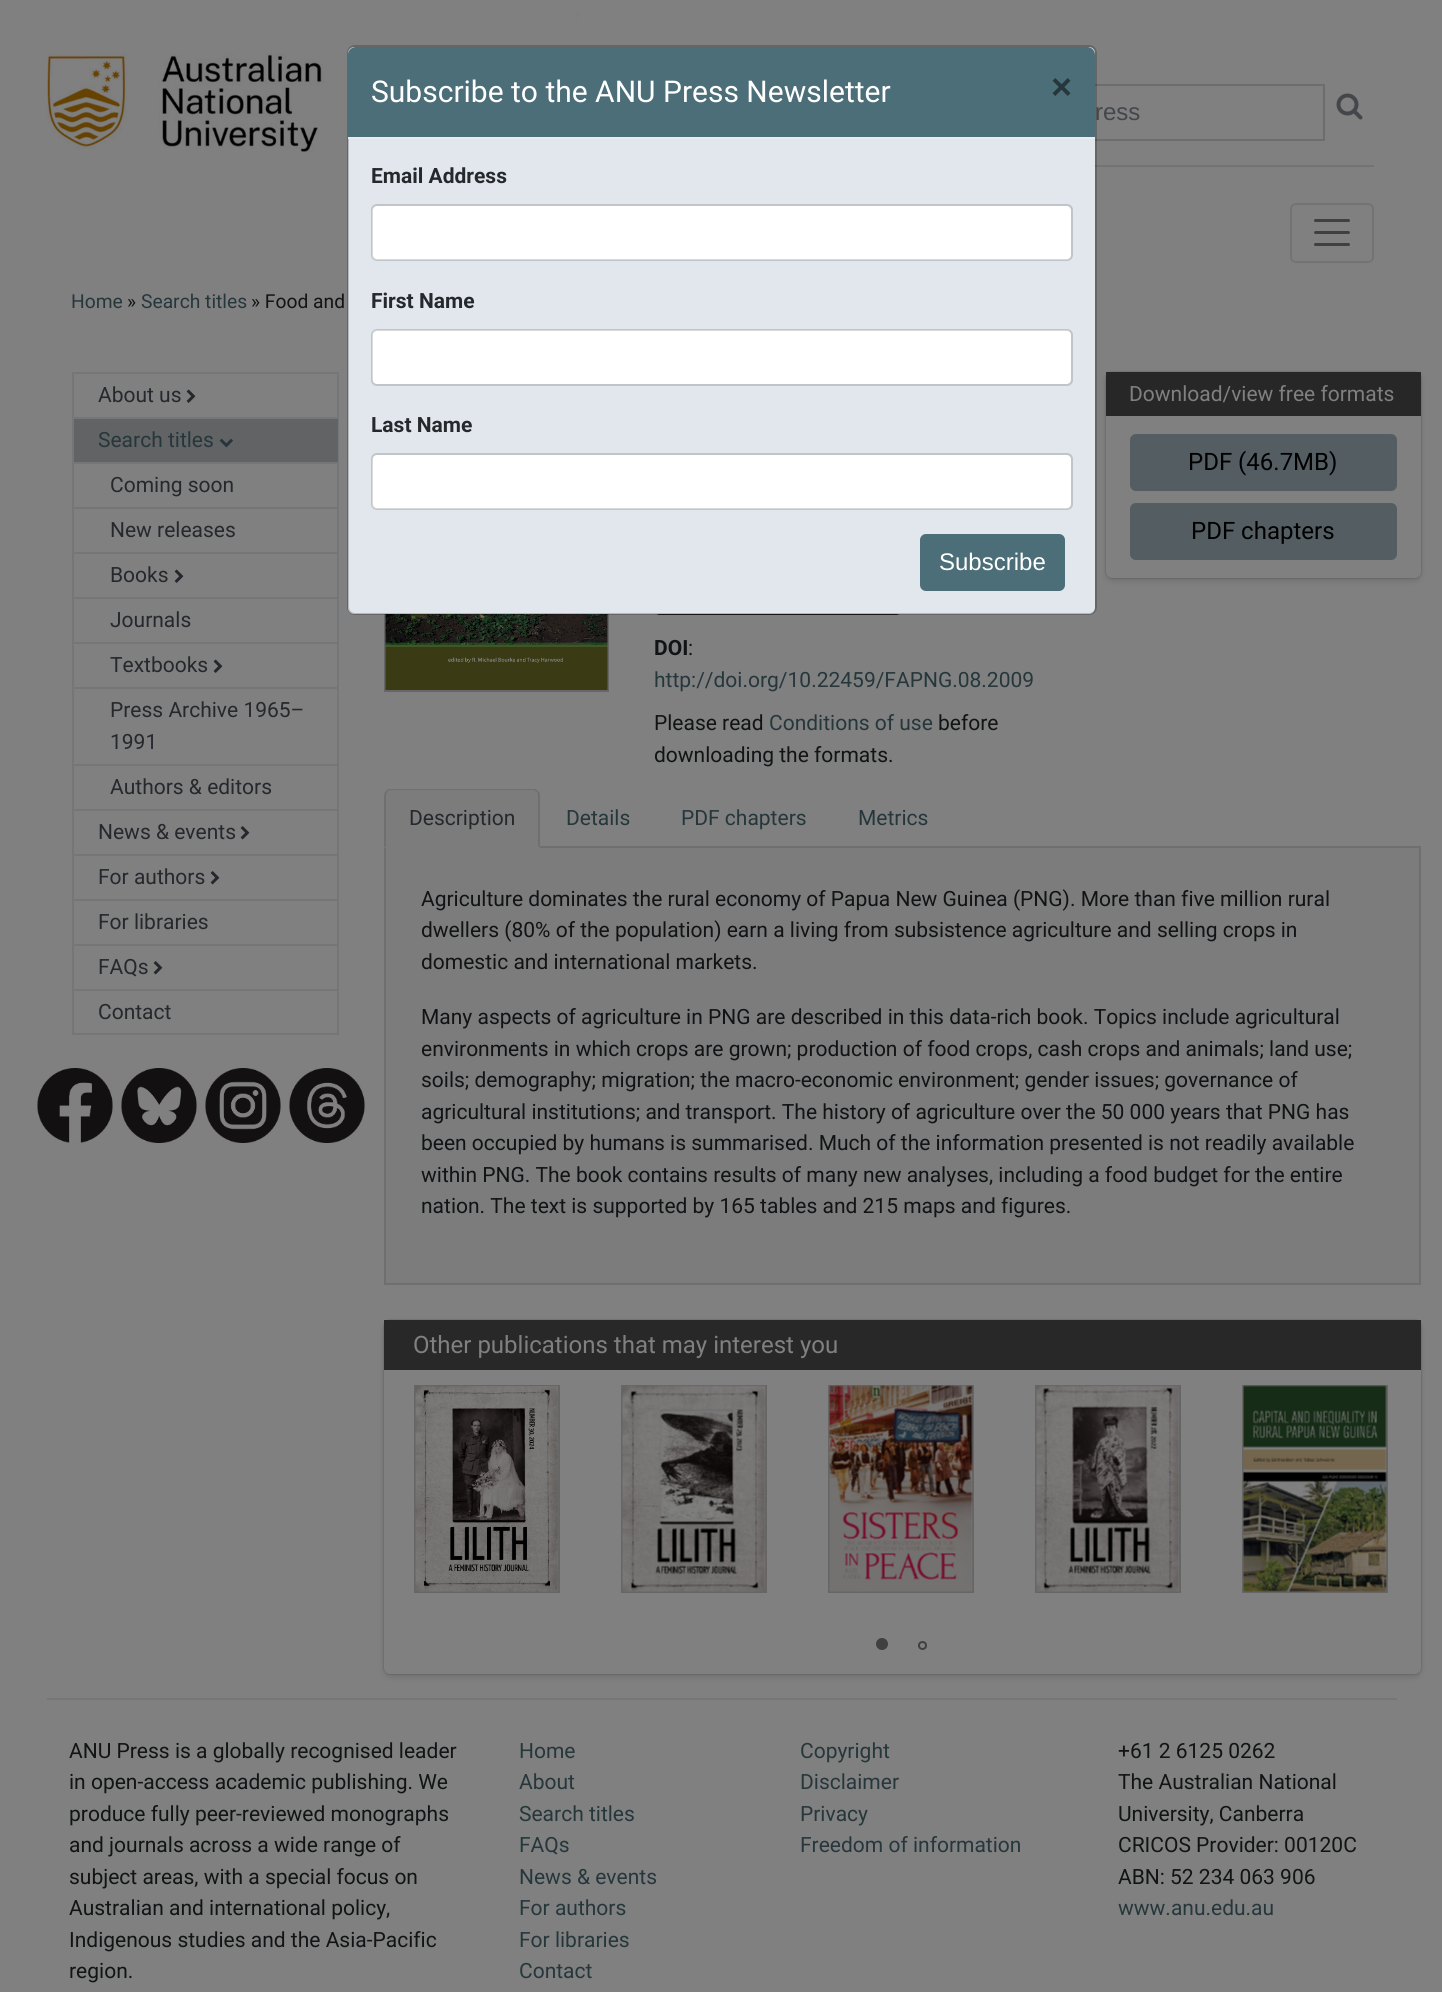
#include <cairo.h>
#include <math.h>
#include <stddef.h>


static void round_rect(cairo_t *cr, double x, double y, double w, double h, double r) {
    cairo_new_sub_path(cr);
    cairo_arc(cr, x + w - r, y + h - r, r, 0, M_PI / 2);
    cairo_arc(cr, x + r, y + h - r, r, M_PI / 2, M_PI);
    cairo_arc(cr, x + r, y + r, r, M_PI, 1.5 * M_PI);
    cairo_arc(cr, x + w - r, y + r, r, 1.5 * M_PI, 2 * M_PI);
    cairo_close_path(cr);
}

static void shadow(cairo_t *cr, double x, double y, double w, double h, double r, double blur, double alpha) {
    cairo_push_group_with_content(cr, CAIRO_CONTENT_ALPHA);
    cairo_set_operator(cr, CAIRO_OPERATOR_SOURCE);
    for (int i = 15; i >= -15 && fmin(w, h) + blur * i / 3 > 0; i -= 2) {
        double e = blur * i / 6;
        cairo_set_source_rgba(cr, 0, 0, 0, alpha * erfc((i - 1) / 8.5) / 2);
        round_rect(cr, x - e, y - e, w + 2 * e, h + 2 * e, fmax(0, fmin(r + e + blur * .6, fmin(w, h) / 2 + e)));
        cairo_fill(cr);
    }
    cairo_pattern_t *soft = cairo_pop_group(cr);
    cairo_mask(cr, soft);
    cairo_pattern_destroy(soft);
}

static void picture(cairo_t *cr, const char *path, double x, double y, double w, double h) {
    cairo_surface_t *image = cairo_image_surface_create_from_png(path);
    cairo_save(cr);
    cairo_set_source_surface(cr, image, x, y);
    cairo_rectangle(cr, x, y, w, h);
    cairo_fill(cr);
    cairo_restore(cr);
    cairo_surface_destroy(image);
}

int main(void) {
    cairo_surface_t *surface = cairo_image_surface_create(CAIRO_FORMAT_RGB24, 1442, 1992);
    cairo_t *cr = cairo_create(surface);
    cairo_font_options_t *options = cairo_font_options_create();
    cairo_font_options_set_hint_metrics(options, CAIRO_HINT_METRICS_OFF);
    cairo_font_options_set_hint_style(options, CAIRO_HINT_STYLE_NONE);
    cairo_set_font_options(cr, options);
    cairo_set_miter_limit(cr, 4);
    cairo_set_source_rgb(cr, 0.502, 0.502, 0.502);
    cairo_paint(cr);
    cairo_rectangle(cr, 385, 373, 223, 318);
    cairo_set_source_rgb(cr, 0.4, 0.4, 0.4);
    cairo_stroke(cr);
    cairo_set_source_rgb(cr, 0.102, 0.102, 0.102);
    round_rect(cr, 654, 558, 248, 57, 6);
    cairo_fill(cr);
    picture(cr, "img14.png", 47, 12, 532, 140);
    cairo_rectangle(cr, 921, 85, 403, 55);
    cairo_set_source_rgb(cr, 0.427, 0.427, 0.427);
    cairo_stroke(cr);
    cairo_set_source_rgb(cr, 0.882, 0.906, 0.922);
    round_rect(cr, 348, 47, 747, 567, 6);
    cairo_fill(cr);
    picture(cr, "img8.png", 385, 614, 223, 76);
    cairo_set_source_rgb(cr, 0, 0, 0);
    shadow(cr, 1106, 375, 315, 206, 6, 3, 0.12);
    cairo_select_font_face(cr, "Liberation Sans", CAIRO_FONT_SLANT_NORMAL, CAIRO_FONT_WEIGHT_NORMAL);
    cairo_set_font_size(cr, 24);
    cairo_set_source_rgb(cr, 0.263, 0.278, 0.294);
    cairo_move_to(cr, 1095, 120);
    cairo_show_text(cr, "ress");
    cairo_set_source_rgb(cr, 0.451, 0.451, 0.451);
    cairo_rectangle(cr, 1095, 165, 279, 2);
    cairo_fill(cr);
    round_rect(cr, 348, 46, 748, 568, 7);
    cairo_set_source_rgba(cr, 0, 0, 0, 0.2);
    cairo_stroke(cr);
    cairo_set_source_rgb(cr, 0.298, 0.431, 0.471);
    cairo_new_path(cr);
    cairo_move_to(cr, 356, 47);
    cairo_line_to(cr, 1087, 47);
    cairo_curve_to(cr, 1091.5, 47, 1095, 50.5, 1095, 55);
    cairo_line_to(cr, 1095, 138);
    cairo_line_to(cr, 348, 138);
    cairo_line_to(cr, 348, 55);
    cairo_curve_to(cr, 348, 50.5, 351.5, 47, 356, 47);
    cairo_close_path(cr);
    cairo_fill(cr);
    cairo_set_source_rgb(cr, 0.914, 0.925, 0.937);
    cairo_rectangle(cr, 348, 137, 747, 2);
    cairo_fill(cr);
    cairo_select_font_face(cr, "Roboto", CAIRO_FONT_SLANT_NORMAL, CAIRO_FONT_WEIGHT_NORMAL);
    cairo_set_font_size(cr, 30);
    cairo_set_source_rgb(cr, 1, 1, 1);
    cairo_move_to(cr, 371, 102);
    cairo_show_text(cr, "Subscribe to the ANU Press Newsletter");
    cairo_select_font_face(cr, "Liberation Sans", CAIRO_FONT_SLANT_NORMAL, CAIRO_FONT_WEIGHT_BOLD);
    cairo_set_font_size(cr, 36);
    cairo_set_source_rgb(cr, 0.149, 0.216, 0.235);
    cairo_move_to(cr, 1051, 99);
    cairo_show_text(cr, "×");
    cairo_select_font_face(cr, "Roboto", CAIRO_FONT_SLANT_NORMAL, CAIRO_FONT_WEIGHT_BOLD);
    cairo_set_font_size(cr, 21);
    cairo_set_source_rgb(cr, 0.145, 0.157, 0.173);
    cairo_move_to(cr, 371, 183);
    cairo_show_text(cr, "Email Address");
    cairo_set_source_rgb(cr, 1, 1, 1);
    round_rect(cr, 372, 206, 699, 54, 5);
    cairo_fill(cr);
    round_rect(cr, 372, 205, 700, 55, 5);
    cairo_set_source_rgba(cr, 0, 0, 0, 0.15);
    cairo_stroke(cr);
    cairo_set_source_rgb(cr, 0.145, 0.157, 0.173);
    cairo_move_to(cr, 371, 308);
    cairo_show_text(cr, "First Name");
    cairo_set_source_rgb(cr, 1, 1, 1);
    round_rect(cr, 372, 330, 699, 54, 5);
    cairo_fill(cr);
    round_rect(cr, 372, 330, 700, 55, 5);
    cairo_set_source_rgba(cr, 0, 0, 0, 0.15);
    cairo_stroke(cr);
    cairo_set_source_rgb(cr, 0.145, 0.157, 0.173);
    cairo_move_to(cr, 371, 432);
    cairo_show_text(cr, "Last Name");
    cairo_set_source_rgb(cr, 1, 1, 1);
    round_rect(cr, 372, 455, 699, 54, 5);
    cairo_fill(cr);
    round_rect(cr, 372, 454, 700, 55, 5);
    cairo_set_source_rgba(cr, 0, 0, 0, 0.15);
    cairo_stroke(cr);
    cairo_set_source_rgb(cr, 0.298, 0.431, 0.471);
    round_rect(cr, 921, 535, 143, 55, 5);
    cairo_fill_preserve(cr);
    cairo_stroke(cr);
    cairo_select_font_face(cr, "Liberation Sans", CAIRO_FONT_SLANT_NORMAL, CAIRO_FONT_WEIGHT_NORMAL);
    cairo_set_font_size(cr, 24);
    cairo_set_source_rgb(cr, 1, 1, 1);
    cairo_move_to(cr, 939, 570);
    cairo_show_text(cr, "Subscribe");
    cairo_rectangle(cr, 73, 373, 265, 661);
    cairo_set_source_rgb(cr, 0.459, 0.463, 0.471);
    cairo_stroke(cr);
    cairo_rectangle(cr, 74, 417, 264, 2);
    cairo_fill(cr);
    cairo_select_font_face(cr, "Roboto", CAIRO_FONT_SLANT_NORMAL, CAIRO_FONT_WEIGHT_NORMAL);
    cairo_set_font_size(cr, 21);
    cairo_set_source_rgb(cr, 0.145, 0.157, 0.173);
    cairo_move_to(cr, 98, 402);
    cairo_show_text(cr, "About us");
    picture(cr, "img1.png", 186, 389, 10, 14);
    cairo_set_source_rgb(cr, 0.384, 0.388, 0.392);
    cairo_rectangle(cr, 74, 419, 264, 43);
    cairo_fill(cr);
    cairo_set_source_rgb(cr, 0.459, 0.463, 0.471);
    cairo_rectangle(cr, 74, 462, 264, 2);
    cairo_fill(cr);
    cairo_set_source_rgb(cr, 0.149, 0.216, 0.235);
    cairo_move_to(cr, 98, 447);
    cairo_show_text(cr, "Search titles");
    picture(cr, "img2.png", 219, 438, 14, 10);
    cairo_set_source_rgb(cr, 0.459, 0.463, 0.471);
    cairo_rectangle(cr, 74, 507, 264, 2);
    cairo_fill(cr);
    cairo_set_source_rgb(cr, 0.145, 0.157, 0.173);
    cairo_move_to(cr, 110, 492);
    cairo_show_text(cr, "Coming soon");
    cairo_set_source_rgb(cr, 0.459, 0.463, 0.471);
    cairo_rectangle(cr, 74, 552, 264, 2);
    cairo_fill(cr);
    cairo_set_source_rgb(cr, 0.145, 0.157, 0.173);
    cairo_move_to(cr, 110, 537);
    cairo_show_text(cr, "New releases");
    cairo_set_source_rgb(cr, 0.459, 0.463, 0.471);
    cairo_rectangle(cr, 74, 597, 264, 2);
    cairo_fill(cr);
    cairo_set_source_rgb(cr, 0.145, 0.157, 0.173);
    cairo_move_to(cr, 110, 582);
    cairo_show_text(cr, "Books");
    picture(cr, "img1.png", 174, 569, 10, 14);
    cairo_set_source_rgb(cr, 0.459, 0.463, 0.471);
    cairo_rectangle(cr, 74, 642, 264, 2);
    cairo_fill(cr);
    cairo_set_source_rgb(cr, 0.145, 0.157, 0.173);
    cairo_move_to(cr, 110, 627);
    cairo_show_text(cr, "Journals");
    cairo_set_source_rgb(cr, 0.459, 0.463, 0.471);
    cairo_rectangle(cr, 74, 687, 264, 2);
    cairo_fill(cr);
    cairo_set_source_rgb(cr, 0.145, 0.157, 0.173);
    cairo_move_to(cr, 110, 672);
    cairo_show_text(cr, "Textbooks");
    picture(cr, "img1.png", 213, 659, 10, 14);
    cairo_set_source_rgb(cr, 0.459, 0.463, 0.471);
    cairo_rectangle(cr, 74, 764, 264, 2);
    cairo_fill(cr);
    cairo_set_source_rgb(cr, 0.145, 0.157, 0.173);
    cairo_move_to(cr, 110, 717);
    cairo_show_text(cr, "Press Archive 1965–");
    cairo_move_to(cr, 110, 749);
    cairo_show_text(cr, "1991");
    cairo_set_source_rgb(cr, 0.459, 0.463, 0.471);
    cairo_rectangle(cr, 74, 809, 264, 2);
    cairo_fill(cr);
    cairo_set_source_rgb(cr, 0.145, 0.157, 0.173);
    cairo_move_to(cr, 110, 794);
    cairo_show_text(cr, "Authors & editors");
    cairo_set_source_rgb(cr, 0.459, 0.463, 0.471);
    cairo_rectangle(cr, 74, 854, 264, 2);
    cairo_fill(cr);
    cairo_set_source_rgb(cr, 0.145, 0.157, 0.173);
    cairo_move_to(cr, 98, 839);
    cairo_show_text(cr, "News & events");
    picture(cr, "img3.png", 240, 826, 10, 14);
    cairo_set_source_rgb(cr, 0.459, 0.463, 0.471);
    cairo_rectangle(cr, 74, 899, 264, 2);
    cairo_fill(cr);
    cairo_set_source_rgb(cr, 0.145, 0.157, 0.173);
    cairo_move_to(cr, 98, 884);
    cairo_show_text(cr, "For authors");
    picture(cr, "img3.png", 210, 871, 10, 14);
    cairo_set_source_rgb(cr, 0.459, 0.463, 0.471);
    cairo_rectangle(cr, 74, 944, 264, 2);
    cairo_fill(cr);
    cairo_set_source_rgb(cr, 0.145, 0.157, 0.173);
    cairo_move_to(cr, 98, 929);
    cairo_show_text(cr, "For libraries");
    cairo_set_source_rgb(cr, 0.459, 0.463, 0.471);
    cairo_rectangle(cr, 74, 989, 264, 2);
    cairo_fill(cr);
    cairo_set_source_rgb(cr, 0.145, 0.157, 0.173);
    cairo_move_to(cr, 98, 974);
    cairo_show_text(cr, "FAQs");
    picture(cr, "img3.png", 153, 961, 10, 14);
    cairo_move_to(cr, 98, 1019);
    cairo_show_text(cr, "Contact");
    picture(cr, "img4.png", 37, 1068, 76, 75);
    picture(cr, "img5.png", 121, 1068, 76, 75);
    picture(cr, "img6.png", 205, 1068, 76, 75);
    picture(cr, "img7.png", 289, 1068, 76, 75);
    cairo_set_source_rgb(cr, 0, 0, 0);
    shadow(cr, 1106, 372, 315, 206, 6, 1, 0.25);
    cairo_set_source_rgb(cr, 0.502, 0.502, 0.502);
    round_rect(cr, 1106, 372, 315, 206, 6);
    cairo_fill(cr);
    cairo_set_source_rgb(cr, 0.153, 0.153, 0.153);
    cairo_rectangle(cr, 1106, 372, 315, 44);
    cairo_fill(cr);
    cairo_set_source_rgb(cr, 0.502, 0.502, 0.502);
    cairo_move_to(cr, 1129, 401);
    cairo_show_text(cr, "Download/view free formats");
    cairo_set_source_rgb(cr, 0.325, 0.365, 0.384);
    round_rect(cr, 1130, 434, 267, 57, 6);
    cairo_fill(cr);
    cairo_set_font_size(cr, 24);
    cairo_set_source_rgb(cr, 0, 0, 0);
    cairo_move_to(cr, 1188, 470);
    cairo_show_text(cr, "PDF (46.7MB)");
    cairo_set_source_rgb(cr, 0.325, 0.365, 0.384);
    round_rect(cr, 1130, 503, 267, 57, 6);
    cairo_fill(cr);
    cairo_set_source_rgb(cr, 0, 0, 0);
    cairo_move_to(cr, 1191, 539);
    cairo_show_text(cr, "PDF chapters");
    cairo_select_font_face(cr, "Roboto", CAIRO_FONT_SLANT_NORMAL, CAIRO_FONT_WEIGHT_BOLD);
    cairo_set_font_size(cr, 21);
    cairo_set_source_rgb(cr, 0.067, 0.075, 0.082);
    cairo_move_to(cr, 654, 655);
    cairo_show_text(cr, "DOI");
    cairo_select_font_face(cr, "Roboto", CAIRO_FONT_SLANT_NORMAL, CAIRO_FONT_WEIGHT_NORMAL);
    cairo_move_to(cr, 688, 655);
    cairo_show_text(cr, ":");
    cairo_set_source_rgb(cr, 0.149, 0.216, 0.235);
    cairo_move_to(cr, 654, 687);
    cairo_show_text(cr, "http://doi.org/10.22459/FAPNG.08.2009");
    cairo_set_source_rgb(cr, 0.067, 0.075, 0.082);
    cairo_move_to(cr, 654, 730);
    cairo_show_text(cr, "Please read");
    cairo_set_source_rgb(cr, 0.149, 0.216, 0.235);
    cairo_move_to(cr, 769, 730);
    cairo_show_text(cr, "Conditions of use");
    cairo_set_source_rgb(cr, 0.067, 0.075, 0.082);
    cairo_move_to(cr, 938, 730);
    cairo_show_text(cr, "before");
    cairo_move_to(cr, 654, 762);
    cairo_show_text(cr, "downloading the formats.");
    cairo_set_source_rgb(cr, 0.435, 0.435, 0.435);
    cairo_rectangle(cr, 540, 846, 881, 2);
    cairo_fill(cr);
    cairo_set_source_rgb(cr, 0.486, 0.486, 0.49);
    cairo_new_path(cr);
    cairo_move_to(cr, 390, 789);
    cairo_line_to(cr, 534, 789);
    cairo_curve_to(cr, 537.5, 789, 540, 791.5, 540, 795);
    cairo_line_to(cr, 540, 848);
    cairo_line_to(cr, 384, 848);
    cairo_line_to(cr, 384, 795);
    cairo_curve_to(cr, 384, 791.5, 386.5, 789, 390, 789);
    cairo_close_path(cr);
    cairo_fill(cr);
    cairo_set_source_rgb(cr, 0.435, 0.435, 0.435);
    cairo_new_path(cr);
    cairo_move_to(cr, 390, 789);
    cairo_curve_to(cr, 388, 789, 387, 790, 386, 791);
    cairo_line_to(cr, 387, 792);
    cairo_curve_to(cr, 388, 791, 389, 790, 390, 790);
    cairo_line_to(cr, 534, 790);
    cairo_line_to(cr, 537, 792);
    cairo_line_to(cr, 538, 791);
    cairo_curve_to(cr, 537, 790, 536, 789, 534, 789);
    cairo_close_path(cr);
    cairo_fill(cr);
    cairo_new_path(cr);
    cairo_move_to(cr, 540, 848);
    cairo_line_to(cr, 540, 795);
    cairo_curve_to(cr, 540, 794, 539, 792, 538, 791);
    cairo_line_to(cr, 537, 792);
    cairo_line_to(cr, 538, 795);
    cairo_line_to(cr, 538, 846);
    cairo_close_path(cr);
    cairo_fill(cr);
    cairo_set_source_rgb(cr, 0.486, 0.486, 0.49);
    cairo_new_path(cr);
    cairo_move_to(cr, 540, 848);
    cairo_line_to(cr, 384, 848);
    cairo_line_to(cr, 386, 846);
    cairo_line_to(cr, 538, 846);
    cairo_close_path(cr);
    cairo_fill(cr);
    cairo_set_source_rgb(cr, 0.435, 0.435, 0.435);
    cairo_new_path(cr);
    cairo_move_to(cr, 384, 848);
    cairo_line_to(cr, 386, 846);
    cairo_line_to(cr, 386, 795);
    cairo_line_to(cr, 387, 792);
    cairo_line_to(cr, 386, 791);
    cairo_curve_to(cr, 385, 792, 384, 794, 384, 795);
    cairo_close_path(cr);
    cairo_fill(cr);
    cairo_set_source_rgb(cr, 0.145, 0.157, 0.173);
    cairo_move_to(cr, 409, 825);
    cairo_show_text(cr, "Description");
    cairo_set_source_rgb(cr, 0.149, 0.216, 0.235);
    cairo_move_to(cr, 566, 825);
    cairo_show_text(cr, "Details");
    cairo_move_to(cr, 681, 825);
    cairo_show_text(cr, "PDF chapters");
    cairo_move_to(cr, 858, 825);
    cairo_show_text(cr, "Metrics");
    cairo_set_source_rgb(cr, 0.486, 0.486, 0.49);
    cairo_rectangle(cr, 386, 848, 1033, 435);
    cairo_fill(cr);
    cairo_set_source_rgb(cr, 0.435, 0.435, 0.435);
    cairo_rectangle(cr, 1419, 848, 2, 436);
    cairo_fill(cr);
    cairo_rectangle(cr, 384, 1283, 1037, 2);
    cairo_fill(cr);
    cairo_rectangle(cr, 384, 848, 2, 436);
    cairo_fill(cr);
    cairo_set_source_rgb(cr, 0.067, 0.075, 0.082);
    cairo_move_to(cr, 421, 906);
    cairo_show_text(cr, "Agriculture dominates the rural economy of Papua New Guinea (PNG). More than five million rural");
    cairo_move_to(cr, 421, 937);
    cairo_show_text(cr, "dwellers (80% of the population) earn a living from subsistence agriculture and selling crops in");
    cairo_move_to(cr, 421, 969);
    cairo_show_text(cr, "domestic and international markets.");
    cairo_move_to(cr, 421, 1024);
    cairo_show_text(cr, "Many aspects of agriculture in PNG are described in this data-rich book. Topics include agricultural");
    cairo_move_to(cr, 421, 1056);
    cairo_show_text(cr, "environments in which crops are grown; production of food crops, cash crops and animals; land use;");
    cairo_move_to(cr, 421, 1087);
    cairo_show_text(cr, "soils; demography; migration; the macro-economic environment; gender issues; governance of");
    cairo_move_to(cr, 421, 1119);
    cairo_show_text(cr, "agricultural institutions; and transport. The history of agriculture over the 50 000 years that PNG has");
    cairo_move_to(cr, 421, 1150);
    cairo_show_text(cr, "been occupied by humans is summarised. Much of the information presented is not readily available");
    cairo_move_to(cr, 421, 1182);
    cairo_show_text(cr, "within PNG. The book contains results of many new analyses, including a food budget for the entire");
    cairo_move_to(cr, 421, 1213);
    cairo_show_text(cr, "nation. The text is supported by 165 tables and 215 maps and figures.");
    cairo_set_source_rgb(cr, 0, 0, 0);
    shadow(cr, 384, 1323, 1037, 354, 6, 3, 0.12);
    shadow(cr, 384, 1320, 1037, 354, 6, 1, 0.25);
    cairo_set_source_rgb(cr, 0.502, 0.502, 0.502);
    round_rect(cr, 384, 1320, 1037, 354, 6);
    cairo_fill(cr);
    cairo_set_source_rgba(cr, 0.118, 0.118, 0.118, 0.9);
    cairo_rectangle(cr, 384, 1320, 1037, 50);
    cairo_fill(cr);
    cairo_set_font_size(cr, 24);
    cairo_set_source_rgb(cr, 0.502, 0.502, 0.502);
    cairo_move_to(cr, 413, 1353);
    cairo_show_text(cr, "Other publications that may interest you");
    cairo_rectangle(cr, 415, 1386, 144, 206);
    cairo_set_source_rgb(cr, 0.4, 0.4, 0.4);
    cairo_stroke(cr);
    picture(cr, "img9.png", 415, 1386, 143, 206);
    cairo_rectangle(cr, 622, 1386, 144, 206);
    cairo_stroke(cr);
    picture(cr, "img10.png", 622, 1385, 144, 207);
    cairo_rectangle(cr, 829, 1386, 144, 206);
    cairo_stroke(cr);
    picture(cr, "img11.png", 829, 1385, 144, 207);
    cairo_rectangle(cr, 1036, 1386, 144, 206);
    cairo_stroke(cr);
    picture(cr, "img12.png", 1036, 1385, 144, 207);
    cairo_rectangle(cr, 1243, 1386, 144, 206);
    cairo_stroke(cr);
    picture(cr, "img13.png", 1243, 1385, 144, 207);
    cairo_set_source_rgb(cr, 0.251, 0.251, 0.251);
    cairo_arc(cr, 882, 1644, 6, 0, 2 * M_PI);
    cairo_fill(cr);
    cairo_arc(cr, 922.5, 1645.5, 3.5, 0, 2 * M_PI);
    cairo_stroke(cr);
    cairo_set_source_rgb(cr, 0.459, 0.463, 0.471);
    cairo_rectangle(cr, 47, 1698, 1350, 2);
    cairo_fill(cr);
    cairo_set_font_size(cr, 21);
    cairo_set_source_rgb(cr, 0.067, 0.075, 0.082);
    cairo_move_to(cr, 69, 1758);
    cairo_show_text(cr, "ANU Press is a globally recognised leader");
    cairo_move_to(cr, 69, 1789);
    cairo_show_text(cr, "in open-access academic publishing. We");
    cairo_move_to(cr, 69, 1821);
    cairo_show_text(cr, "produce fully peer-reviewed monographs");
    cairo_move_to(cr, 69, 1852);
    cairo_show_text(cr, "and journals across a wide range of");
    cairo_move_to(cr, 69, 1884);
    cairo_show_text(cr, "subject areas, with a special focus on");
    cairo_move_to(cr, 69, 1915);
    cairo_show_text(cr, "Australian and international policy,");
    cairo_move_to(cr, 69, 1947);
    cairo_show_text(cr, "Indigenous studies and the Asia-Pacific");
    cairo_move_to(cr, 69, 1978);
    cairo_show_text(cr, "region.");
    cairo_set_source_rgb(cr, 0.149, 0.216, 0.235);
    cairo_move_to(cr, 519, 1758);
    cairo_show_text(cr, "Home");
    cairo_move_to(cr, 519, 1789);
    cairo_show_text(cr, "About");
    cairo_move_to(cr, 519, 1821);
    cairo_show_text(cr, "Search titles");
    cairo_move_to(cr, 519, 1852);
    cairo_show_text(cr, "FAQs");
    cairo_move_to(cr, 519, 1884);
    cairo_show_text(cr, "News & events");
    cairo_move_to(cr, 519, 1915);
    cairo_show_text(cr, "For authors");
    cairo_move_to(cr, 519, 1947);
    cairo_show_text(cr, "For libraries");
    cairo_move_to(cr, 519, 1978);
    cairo_show_text(cr, "Contact");
    cairo_move_to(cr, 800, 1758);
    cairo_show_text(cr, "Copyright");
    cairo_move_to(cr, 800, 1789);
    cairo_show_text(cr, "Disclaimer");
    cairo_move_to(cr, 800, 1821);
    cairo_show_text(cr, "Privacy");
    cairo_move_to(cr, 800, 1852);
    cairo_show_text(cr, "Freedom of information");
    cairo_set_source_rgb(cr, 0.067, 0.075, 0.082);
    cairo_move_to(cr, 1118, 1758);
    cairo_show_text(cr, "+61 2 6125 0262");
    cairo_move_to(cr, 1118, 1789);
    cairo_show_text(cr, "The Australian National");
    cairo_move_to(cr, 1118, 1821);
    cairo_show_text(cr, "University, Canberra");
    cairo_move_to(cr, 1118, 1852);
    cairo_show_text(cr, "CRICOS Provider: 00120C");
    cairo_move_to(cr, 1118, 1884);
    cairo_show_text(cr, "ABN: 52 234 063 906");
    cairo_set_source_rgb(cr, 0.149, 0.216, 0.235);
    cairo_move_to(cr, 1118, 1915);
    cairo_show_text(cr, "www.anu.edu.au");
    picture(cr, "img15.png", 1336, 93, 27, 27);
    round_rect(cr, 1291, 204, 82, 58, 5);
    cairo_set_source_rgb(cr, 0.451, 0.451, 0.451);
    cairo_stroke(cr);
    cairo_new_path(cr);
    cairo_move_to(cr, 1315.5, 220.5);
    cairo_line_to(cr, 1348.5, 220.5);
    cairo_move_to(cr, 1315.5, 232.5);
    cairo_line_to(cr, 1348.5, 232.5);
    cairo_move_to(cr, 1315.5, 244.5);
    cairo_line_to(cr, 1348.5, 244.5);
    cairo_set_source_rgb(cr, 0.251, 0.251, 0.251);
    cairo_set_line_width(cr, 3);
    cairo_set_line_cap(cr, CAIRO_LINE_CAP_ROUND);
    cairo_stroke(cr);
    cairo_set_font_size(cr, 19.25);
    cairo_set_source_rgb(cr, 0.149, 0.216, 0.235);
    cairo_move_to(cr, 71, 308);
    cairo_show_text(cr, "Home");
    cairo_set_source_rgb(cr, 0.067, 0.075, 0.082);
    cairo_move_to(cr, 127, 308);
    cairo_show_text(cr, "»");
    cairo_set_source_rgb(cr, 0.149, 0.216, 0.235);
    cairo_move_to(cr, 141, 308);
    cairo_show_text(cr, "Search titles");
    cairo_set_source_rgb(cr, 0.067, 0.075, 0.082);
    cairo_move_to(cr, 251, 308);
    cairo_show_text(cr, "» Food and");
    cairo_surface_write_to_png(surface, "page.png");
    cairo_font_options_destroy(options);
    cairo_destroy(cr);
    cairo_surface_destroy(surface);
    return 0;
}
